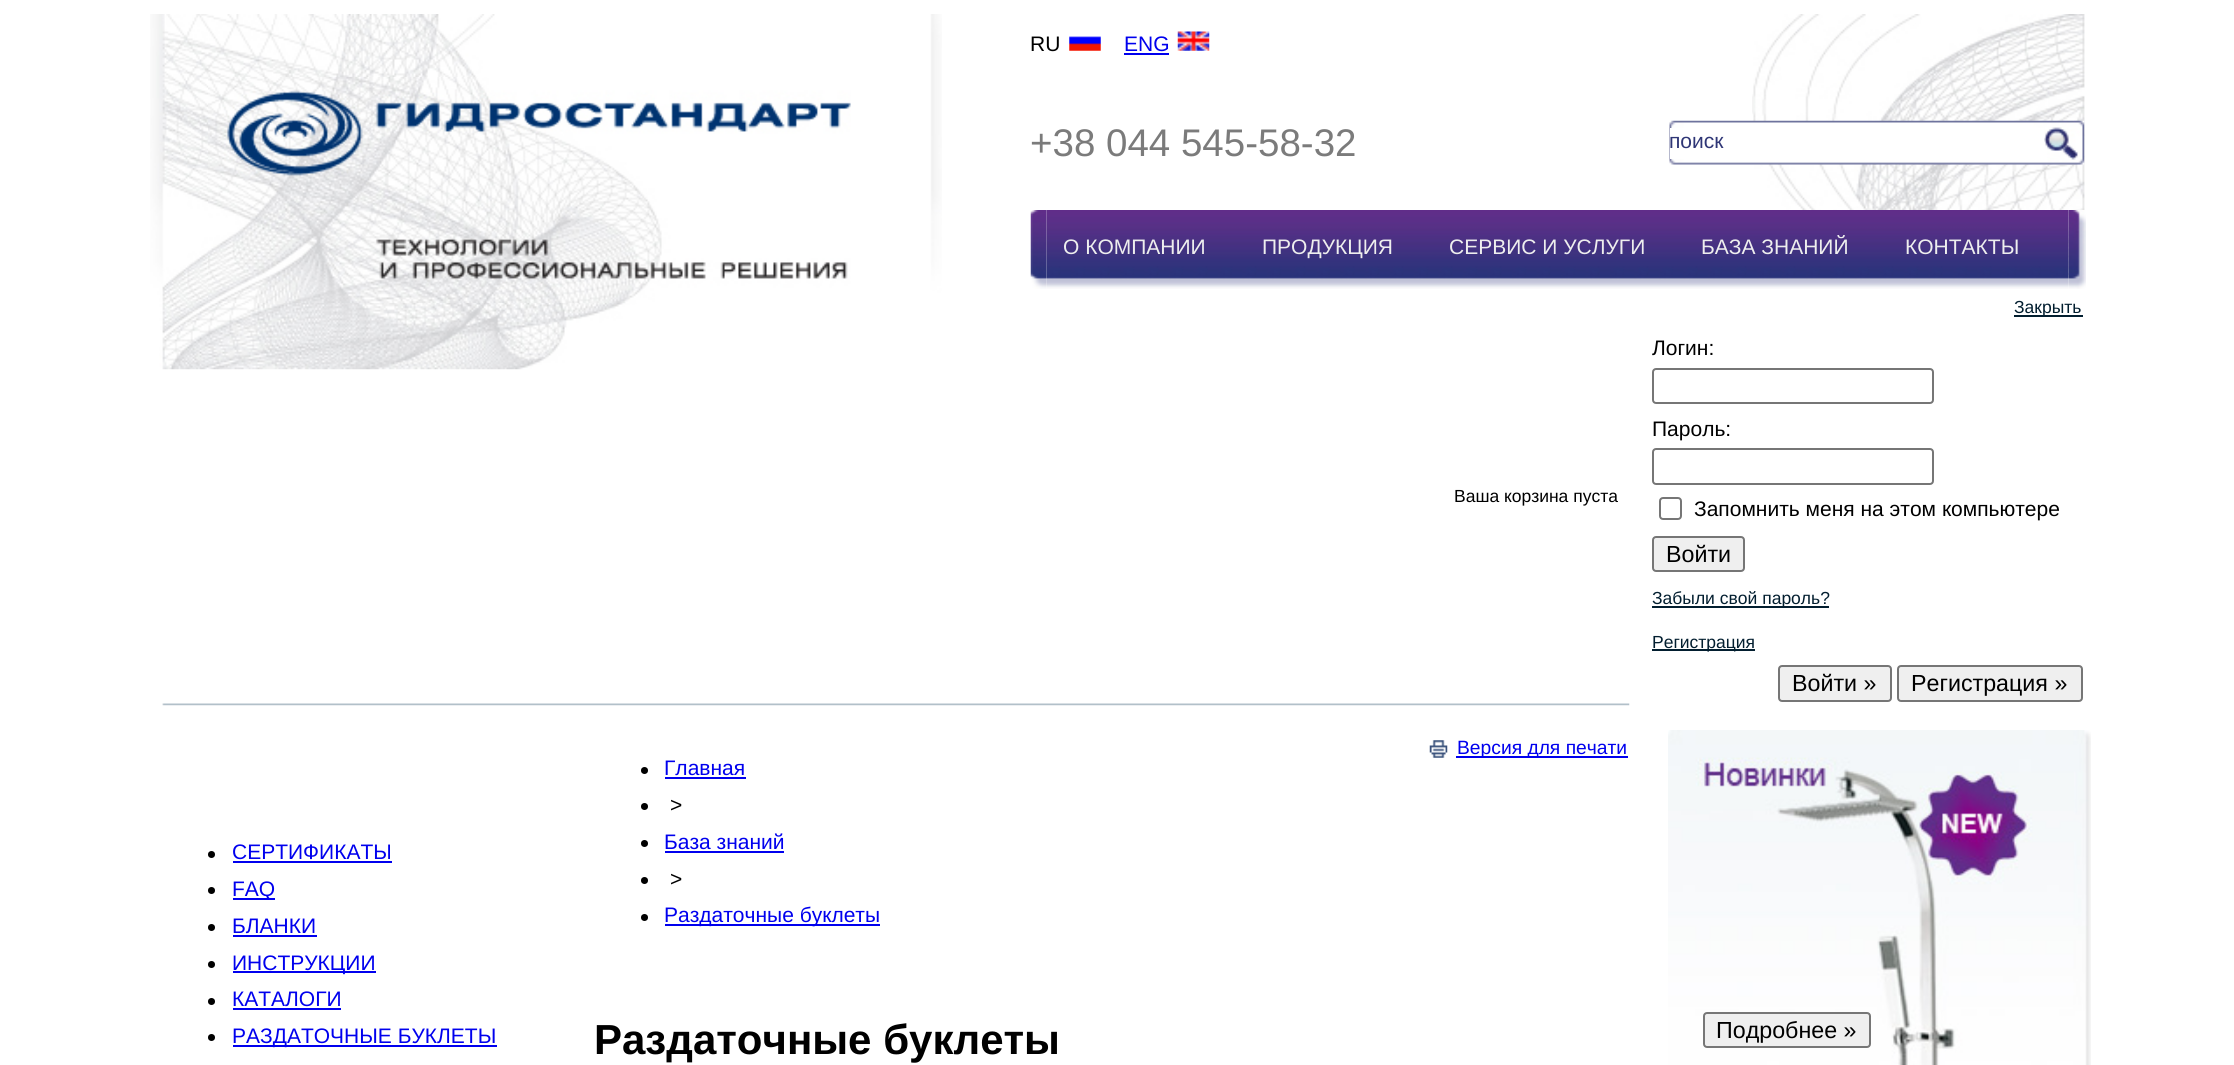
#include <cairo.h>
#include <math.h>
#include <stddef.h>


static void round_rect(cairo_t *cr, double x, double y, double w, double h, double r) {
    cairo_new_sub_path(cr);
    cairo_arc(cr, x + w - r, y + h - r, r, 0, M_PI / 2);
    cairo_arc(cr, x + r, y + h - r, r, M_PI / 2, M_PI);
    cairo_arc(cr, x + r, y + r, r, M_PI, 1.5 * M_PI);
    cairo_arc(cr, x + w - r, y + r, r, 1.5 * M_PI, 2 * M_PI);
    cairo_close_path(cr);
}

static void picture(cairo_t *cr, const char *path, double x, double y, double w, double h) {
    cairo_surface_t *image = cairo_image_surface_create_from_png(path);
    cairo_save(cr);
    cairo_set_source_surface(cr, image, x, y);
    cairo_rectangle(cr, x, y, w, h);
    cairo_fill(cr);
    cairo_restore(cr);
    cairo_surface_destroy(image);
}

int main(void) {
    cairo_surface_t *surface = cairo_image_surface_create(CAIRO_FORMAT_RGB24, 2234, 1065);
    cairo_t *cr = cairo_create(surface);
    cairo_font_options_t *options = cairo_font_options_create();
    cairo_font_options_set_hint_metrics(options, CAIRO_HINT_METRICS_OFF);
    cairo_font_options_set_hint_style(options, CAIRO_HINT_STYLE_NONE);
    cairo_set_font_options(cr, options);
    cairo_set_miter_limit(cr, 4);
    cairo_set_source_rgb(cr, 1, 1, 1);
    cairo_paint(cr);
    picture(cr, "img1.png", 1752, 14, 333, 261);
    picture(cr, "img2.png", 150, 14, 792, 356);
    picture(cr, "img3.png", 208, 77, 643, 226);
    cairo_select_font_face(cr, "Liberation Sans", CAIRO_FONT_SLANT_NORMAL, CAIRO_FONT_WEIGHT_NORMAL);
    cairo_set_font_size(cr, 21);
    cairo_set_source_rgb(cr, 0, 0, 0);
    cairo_move_to(cr, 1030, 51);
    cairo_show_text(cr, "RU");
    picture(cr, "img4.png", 1069, 36, 32, 15);
    cairo_set_source_rgb(cr, 0, 0, 0.933);
    cairo_move_to(cr, 1124, 51);
    cairo_show_text(cr, "ENG");
    cairo_rectangle(cr, 1124, 53, 45, 2);
    cairo_fill(cr);
    picture(cr, "img5.png", 1177, 31, 33, 20);
    cairo_set_font_size(cr, 38.5);
    cairo_set_source_rgb(cr, 0.482, 0.482, 0.482);
    cairo_move_to(cr, 1030, 156);
    cairo_show_text(cr, "+38 044 545-58-32");
    picture(cr, "img6.png", 1669, 120, 416, 45);
    cairo_set_source_rgb(cr, 1, 1, 1);
    cairo_rectangle(cr, 1670, 128, 374, 31);
    cairo_fill(cr);
    cairo_set_font_size(cr, 21);
    cairo_set_source_rgb(cr, 0.184, 0.212, 0.463);
    cairo_move_to(cr, 1669, 148);
    cairo_show_text(cr, "поиск");
    picture(cr, "img8.png", 1046, 210, 1023, 79);
    picture(cr, "img7.png", 1030, 210, 17, 79);
    cairo_set_source_rgb(cr, 0.933, 0.933, 0.933);
    cairo_move_to(cr, 1063, 254);
    cairo_show_text(cr, "О КОМПАНИИ");
    cairo_move_to(cr, 1262, 254);
    cairo_show_text(cr, "ПРОДУКЦИЯ");
    cairo_move_to(cr, 1449, 254);
    cairo_show_text(cr, "СЕРВИС И УСЛУГИ");
    cairo_move_to(cr, 1701, 254);
    cairo_show_text(cr, "БАЗА ЗНАНИЙ");
    cairo_move_to(cr, 1905, 254);
    cairo_show_text(cr, "КОНТАКТЫ");
    picture(cr, "img9.png", 2068, 210, 18, 79);
    cairo_set_font_size(cr, 17.5);
    cairo_set_source_rgb(cr, 0, 0, 0);
    cairo_move_to(cr, 1454, 502);
    cairo_show_text(cr, "Ваша корзина пуста");
    cairo_set_source_rgb(cr, 0.008, 0.118, 0.184);
    cairo_rectangle(cr, 2014, 315, 69, 2);
    cairo_fill(cr);
    cairo_move_to(cr, 2014, 313);
    cairo_show_text(cr, "Закрыть");
    cairo_set_font_size(cr, 21);
    cairo_set_source_rgb(cr, 0, 0, 0);
    cairo_move_to(cr, 1652, 355);
    cairo_show_text(cr, "Логин:");
    round_rect(cr, 1653, 369, 280, 34, 3);
    cairo_set_source_rgb(cr, 0.463, 0.463, 0.463);
    cairo_stroke(cr);
    cairo_set_source_rgb(cr, 0, 0, 0);
    cairo_move_to(cr, 1652, 436);
    cairo_show_text(cr, "Пароль:");
    round_rect(cr, 1653, 449, 280, 35, 3);
    cairo_set_source_rgb(cr, 0.463, 0.463, 0.463);
    cairo_stroke(cr);
    round_rect(cr, 1660, 498, 21, 21, 3);
    cairo_stroke(cr);
    cairo_set_source_rgb(cr, 0, 0, 0);
    cairo_move_to(cr, 1694, 516);
    cairo_show_text(cr, "Запомнить меня на этом компьютере");
    cairo_set_source_rgb(cr, 0.937, 0.937, 0.937);
    round_rect(cr, 1653, 537, 91, 34, 3);
    cairo_fill_preserve(cr);
    cairo_set_source_rgb(cr, 0.463, 0.463, 0.463);
    cairo_stroke(cr);
    cairo_set_font_size(cr, 23.25);
    cairo_set_source_rgb(cr, 0, 0, 0);
    cairo_move_to(cr, 1666, 562);
    cairo_show_text(cr, "Войти");
    cairo_set_source_rgb(cr, 0.008, 0.118, 0.184);
    cairo_rectangle(cr, 1652, 606, 177, 2);
    cairo_fill(cr);
    cairo_set_font_size(cr, 17.5);
    cairo_move_to(cr, 1652, 604);
    cairo_show_text(cr, "Забыли свой пароль?");
    cairo_rectangle(cr, 1652, 649, 103, 2);
    cairo_fill(cr);
    cairo_move_to(cr, 1652, 648);
    cairo_show_text(cr, "Регистрация");
    cairo_set_source_rgb(cr, 0.937, 0.937, 0.937);
    round_rect(cr, 1779, 666, 112, 35, 3);
    cairo_fill_preserve(cr);
    cairo_set_source_rgb(cr, 0.463, 0.463, 0.463);
    cairo_stroke(cr);
    cairo_set_font_size(cr, 23.25);
    cairo_set_source_rgb(cr, 0, 0, 0);
    cairo_move_to(cr, 1792, 691);
    cairo_show_text(cr, "Войти »");
    cairo_set_source_rgb(cr, 0.937, 0.937, 0.937);
    round_rect(cr, 1898, 666, 184, 35, 3);
    cairo_fill_preserve(cr);
    cairo_set_source_rgb(cr, 0.463, 0.463, 0.463);
    cairo_stroke(cr);
    cairo_set_source_rgb(cr, 0, 0, 0);
    cairo_move_to(cr, 1911, 691);
    cairo_show_text(cr, "Регистрация »");
    picture(cr, "img10.png", 162, 703, 1468, 3);
    cairo_arc(cr, 211.5, 854.5, 3.5, 0, 2 * M_PI);
    cairo_fill(cr);
    cairo_set_font_size(cr, 21);
    cairo_set_source_rgb(cr, 0, 0, 0.933);
    cairo_move_to(cr, 232, 859);
    cairo_show_text(cr, "СЕРТИФИКАТЫ");
    cairo_rectangle(cr, 233, 861, 159, 2);
    cairo_fill(cr);
    cairo_set_source_rgb(cr, 0, 0, 0);
    cairo_arc(cr, 211.5, 890.5, 3.5, 0, 2 * M_PI);
    cairo_fill(cr);
    cairo_set_source_rgb(cr, 0, 0, 0.933);
    cairo_rectangle(cr, 233, 898, 42, 2);
    cairo_fill(cr);
    cairo_move_to(cr, 232, 896);
    cairo_show_text(cr, "FAQ");
    cairo_set_source_rgb(cr, 0, 0, 0);
    cairo_new_path(cr);
    cairo_arc(cr, 211.5, 927.5, 3.5, 0, 2 * M_PI);
    cairo_fill(cr);
    cairo_set_source_rgb(cr, 0, 0, 0.933);
    cairo_move_to(cr, 232, 933);
    cairo_show_text(cr, "БЛАНКИ");
    cairo_rectangle(cr, 233, 935, 84, 2);
    cairo_fill(cr);
    cairo_set_source_rgb(cr, 0, 0, 0);
    cairo_arc(cr, 211.5, 964.5, 3.5, 0, 2 * M_PI);
    cairo_fill(cr);
    cairo_set_source_rgb(cr, 0, 0, 0.933);
    cairo_rectangle(cr, 233, 971, 143, 2);
    cairo_fill(cr);
    cairo_move_to(cr, 232, 970);
    cairo_show_text(cr, "ИНСТРУКЦИИ");
    cairo_set_source_rgb(cr, 0, 0, 0);
    cairo_new_path(cr);
    cairo_arc(cr, 211.5, 1001.5, 3.5, 0, 2 * M_PI);
    cairo_fill(cr);
    cairo_set_source_rgb(cr, 0, 0, 0.933);
    cairo_move_to(cr, 232, 1006);
    cairo_show_text(cr, "КАТАЛОГИ");
    cairo_rectangle(cr, 233, 1008, 108, 2);
    cairo_fill(cr);
    cairo_set_source_rgb(cr, 0, 0, 0);
    cairo_arc(cr, 211.5, 1037.5, 3.5, 0, 2 * M_PI);
    cairo_fill(cr);
    cairo_set_source_rgb(cr, 0, 0, 0.933);
    cairo_rectangle(cr, 233, 1045, 264, 2);
    cairo_fill(cr);
    cairo_move_to(cr, 232, 1043);
    cairo_show_text(cr, "РАЗДАТОЧНЫЕ БУКЛЕТЫ");
    picture(cr, "img11.png", 1429, 740, 19, 18);
    cairo_rectangle(cr, 1456, 756, 172, 2);
    cairo_fill(cr);
    cairo_set_font_size(cr, 19.25);
    cairo_move_to(cr, 1457, 754);
    cairo_show_text(cr, "Версия для печати");
    cairo_set_source_rgb(cr, 0, 0, 0);
    cairo_new_path(cr);
    cairo_arc(cr, 644.5, 770.5, 3.5, 0, 2 * M_PI);
    cairo_fill(cr);
    cairo_set_font_size(cr, 21);
    cairo_set_source_rgb(cr, 0, 0, 0.933);
    cairo_move_to(cr, 664, 775);
    cairo_show_text(cr, "Главная");
    cairo_rectangle(cr, 665, 777, 81, 2);
    cairo_fill(cr);
    cairo_set_source_rgb(cr, 0, 0, 0);
    cairo_arc(cr, 644.5, 806.5, 3.5, 0, 2 * M_PI);
    cairo_fill(cr);
    cairo_move_to(cr, 670, 812);
    cairo_show_text(cr, ">");
    cairo_new_path(cr);
    cairo_arc(cr, 644.5, 843.5, 3.5, 0, 2 * M_PI);
    cairo_fill(cr);
    cairo_set_source_rgb(cr, 0, 0, 0.933);
    cairo_move_to(cr, 664, 849);
    cairo_show_text(cr, "База знаний");
    cairo_rectangle(cr, 665, 851, 119, 2);
    cairo_fill(cr);
    cairo_set_source_rgb(cr, 0, 0, 0);
    cairo_arc(cr, 644.5, 880.5, 3.5, 0, 2 * M_PI);
    cairo_fill(cr);
    cairo_move_to(cr, 670, 886);
    cairo_show_text(cr, ">");
    cairo_new_path(cr);
    cairo_arc(cr, 644.5, 917.5, 3.5, 0, 2 * M_PI);
    cairo_fill(cr);
    cairo_set_source_rgb(cr, 0, 0, 0.933);
    cairo_rectangle(cr, 665, 924, 215, 2);
    cairo_fill(cr);
    cairo_move_to(cr, 664, 922);
    cairo_show_text(cr, "Раздаточные буклеты");
    cairo_select_font_face(cr, "Liberation Sans", CAIRO_FONT_SLANT_NORMAL, CAIRO_FONT_WEIGHT_BOLD);
    cairo_set_font_size(cr, 42);
    cairo_set_source_rgb(cr, 0, 0, 0);
    cairo_move_to(cr, 594, 1054);
    cairo_show_text(cr, "Раздаточные буклеты");
    picture(cr, "img12.png", 1668, 730, 423, 335);
    cairo_set_source_rgb(cr, 0.937, 0.937, 0.937);
    round_rect(cr, 1704, 1013, 166, 34, 3);
    cairo_fill_preserve(cr);
    cairo_set_source_rgb(cr, 0.463, 0.463, 0.463);
    cairo_stroke(cr);
    cairo_select_font_face(cr, "Liberation Sans", CAIRO_FONT_SLANT_NORMAL, CAIRO_FONT_WEIGHT_NORMAL);
    cairo_set_font_size(cr, 23.25);
    cairo_set_source_rgb(cr, 0, 0, 0);
    cairo_move_to(cr, 1716, 1038);
    cairo_show_text(cr, "Подробнее »");
    cairo_surface_write_to_png(surface, "page.png");
    cairo_font_options_destroy(options);
    cairo_destroy(cr);
    cairo_surface_destroy(surface);
    return 0;
}
